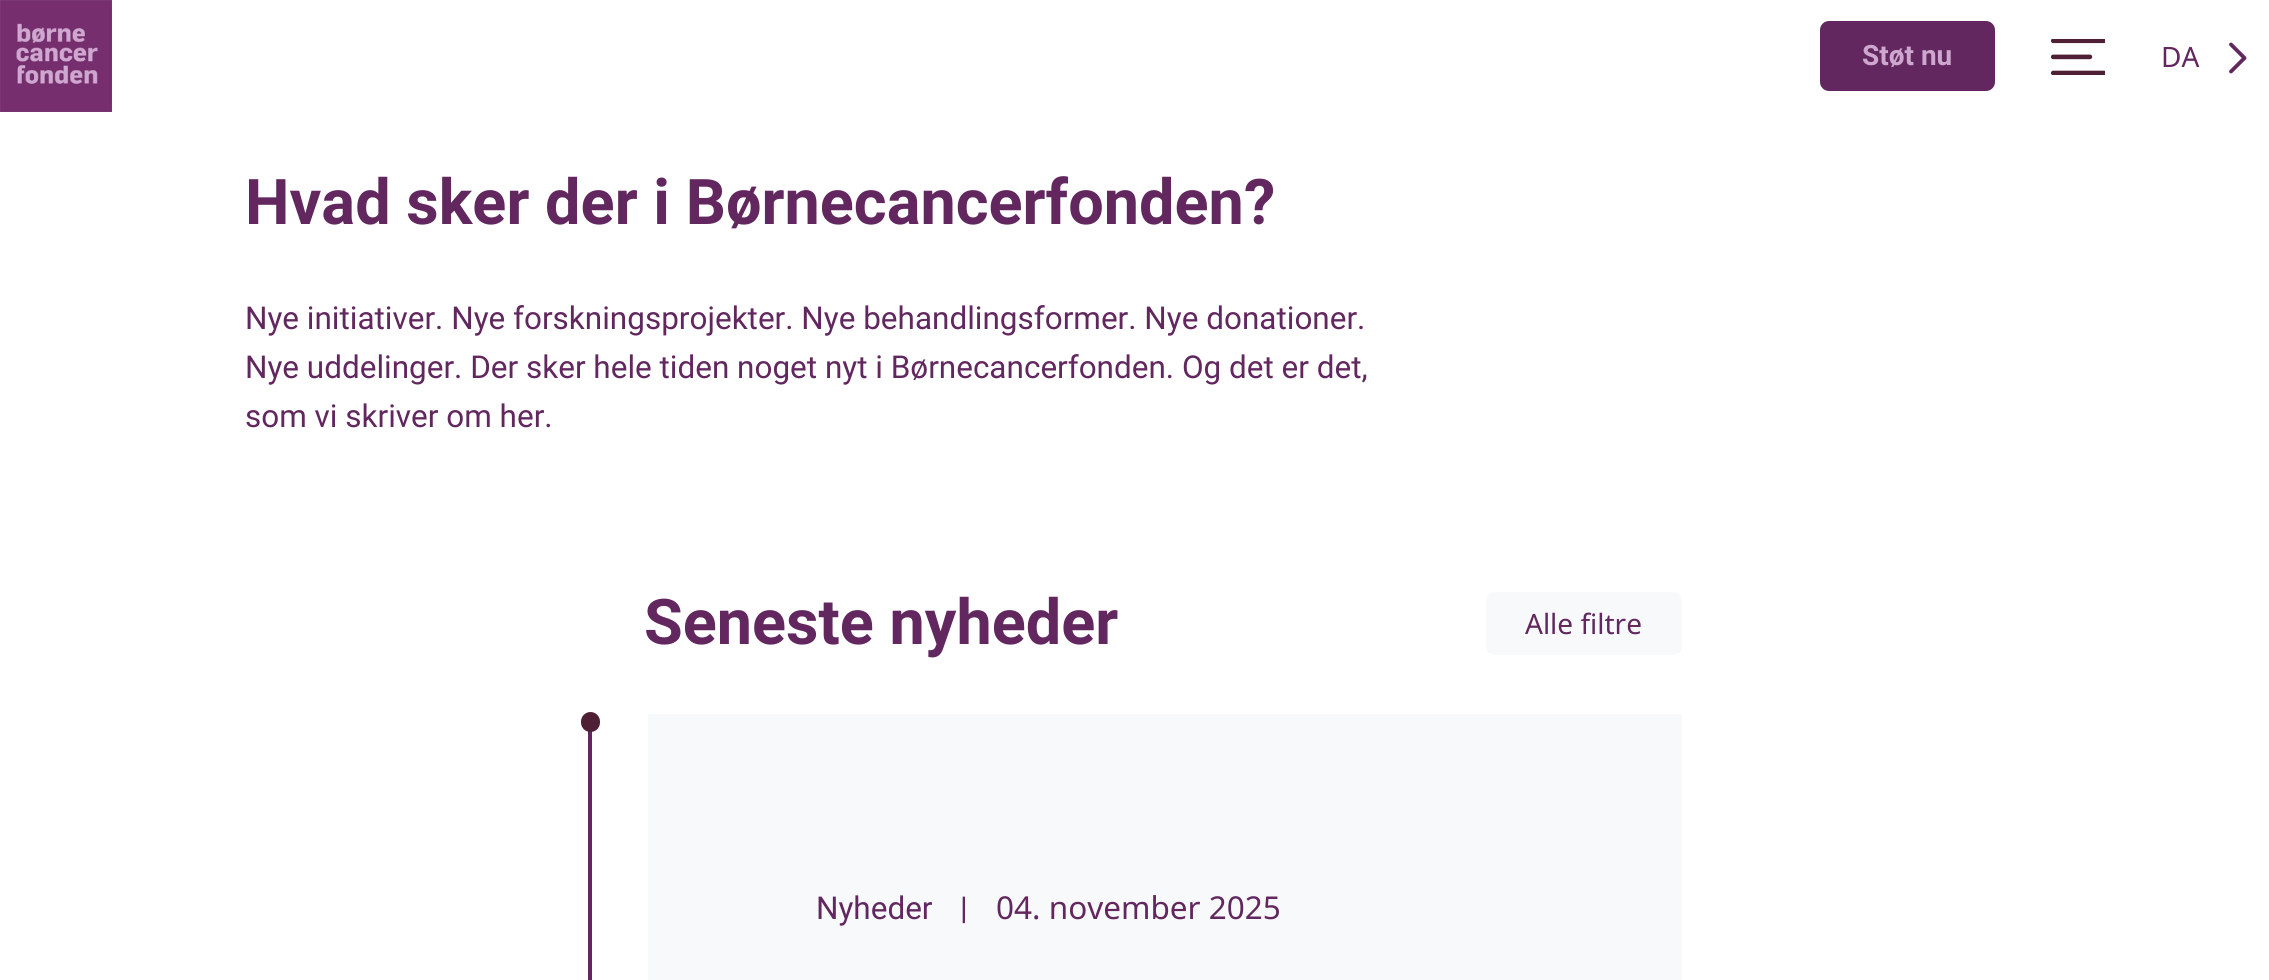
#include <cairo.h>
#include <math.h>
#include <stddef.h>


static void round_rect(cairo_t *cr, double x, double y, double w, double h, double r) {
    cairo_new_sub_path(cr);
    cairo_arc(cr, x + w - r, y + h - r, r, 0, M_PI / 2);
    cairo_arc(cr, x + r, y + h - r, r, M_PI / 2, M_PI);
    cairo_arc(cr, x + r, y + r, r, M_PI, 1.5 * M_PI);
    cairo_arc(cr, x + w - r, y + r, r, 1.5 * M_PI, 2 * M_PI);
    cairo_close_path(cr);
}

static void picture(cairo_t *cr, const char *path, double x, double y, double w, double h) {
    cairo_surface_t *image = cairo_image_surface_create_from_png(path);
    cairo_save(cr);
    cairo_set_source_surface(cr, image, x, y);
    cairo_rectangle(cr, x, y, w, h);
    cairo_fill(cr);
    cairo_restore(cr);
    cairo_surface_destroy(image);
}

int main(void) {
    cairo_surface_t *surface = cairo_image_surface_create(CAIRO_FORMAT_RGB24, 2269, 980);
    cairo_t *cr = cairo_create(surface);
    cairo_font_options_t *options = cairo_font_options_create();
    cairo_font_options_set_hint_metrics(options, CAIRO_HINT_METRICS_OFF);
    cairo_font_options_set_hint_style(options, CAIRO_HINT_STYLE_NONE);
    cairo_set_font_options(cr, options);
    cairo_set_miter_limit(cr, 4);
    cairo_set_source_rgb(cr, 1, 1, 1);
    cairo_paint(cr);
    picture(cr, "img1.png", 0, 0, 112, 112);
    cairo_set_source_rgb(cr, 0.384, 0.153, 0.373);
    round_rect(cr, 1820, 21, 175, 70, 9);
    cairo_fill(cr);
    cairo_select_font_face(cr, "Roboto", CAIRO_FONT_SLANT_NORMAL, CAIRO_FONT_WEIGHT_BOLD);
    cairo_set_font_size(cr, 28);
    cairo_set_source_rgb(cr, 0.808, 0.655, 0.808);
    cairo_move_to(cr, 1862, 65);
    cairo_show_text(cr, "Støt nu");
    picture(cr, "img2.png", 2051, 39, 54, 36);
    cairo_select_font_face(cr, "Noto Sans", CAIRO_FONT_SLANT_NORMAL, CAIRO_FONT_WEIGHT_NORMAL);
    cairo_set_source_rgb(cr, 0.384, 0.153, 0.373);
    cairo_move_to(cr, 2161, 67);
    cairo_show_text(cr, "DA");
    cairo_new_path(cr);
    cairo_move_to(cr, 2231, 44.5);
    cairo_line_to(cr, 2244.5, 58);
    cairo_line_to(cr, 2231, 71.5);
    cairo_set_line_width(cr, 3.8);
    cairo_set_line_cap(cr, CAIRO_LINE_CAP_ROUND);
    cairo_set_line_join(cr, CAIRO_LINE_JOIN_ROUND);
    cairo_stroke(cr);
    cairo_select_font_face(cr, "Roboto", CAIRO_FONT_SLANT_NORMAL, CAIRO_FONT_WEIGHT_BOLD);
    cairo_set_font_size(cr, 63);
    cairo_move_to(cr, 245, 224);
    cairo_show_text(cr, "Hvad sker der i Børnecancerfonden?");
    cairo_select_font_face(cr, "Roboto", CAIRO_FONT_SLANT_NORMAL, CAIRO_FONT_WEIGHT_NORMAL);
    cairo_set_font_size(cr, 31.5);
    cairo_move_to(cr, 245, 329);
    cairo_show_text(cr, "Nye initiativer. Nye forskningsprojekter. Nye behandlingsformer. Nye donationer.");
    cairo_move_to(cr, 245, 378);
    cairo_show_text(cr, "Nye uddelinger. Der sker hele tiden noget nyt i Børnecancerfonden. Og det er det,");
    cairo_move_to(cr, 245, 427);
    cairo_show_text(cr, "som vi skriver om her.");
    cairo_select_font_face(cr, "Roboto", CAIRO_FONT_SLANT_NORMAL, CAIRO_FONT_WEIGHT_BOLD);
    cairo_set_font_size(cr, 63);
    cairo_move_to(cr, 644, 644);
    cairo_show_text(cr, "Seneste nyheder");
    cairo_set_source_rgb(cr, 0.969, 0.976, 0.984);
    round_rect(cr, 1486, 592, 196, 63, 9);
    cairo_fill(cr);
    cairo_select_font_face(cr, "Noto Sans", CAIRO_FONT_SLANT_NORMAL, CAIRO_FONT_WEIGHT_NORMAL);
    cairo_set_font_size(cr, 28);
    cairo_set_source_rgb(cr, 0.384, 0.153, 0.373);
    cairo_move_to(cr, 1525, 634);
    cairo_show_text(cr, "Alle filtre");
    cairo_rectangle(cr, 588, 731, 4, 249);
    cairo_fill(cr);
    cairo_set_source_rgb(cr, 0.969, 0.976, 0.984);
    cairo_rectangle(cr, 648, 714, 1034, 266);
    cairo_fill(cr);
    cairo_set_source_rgb(cr, 0.31, 0.125, 0.208);
    round_rect(cr, 581, 712, 19, 20, 9.5);
    cairo_fill(cr);
    cairo_select_font_face(cr, "Roboto", CAIRO_FONT_SLANT_NORMAL, CAIRO_FONT_WEIGHT_NORMAL);
    cairo_set_font_size(cr, 31.5);
    cairo_set_source_rgb(cr, 0.384, 0.153, 0.373);
    cairo_move_to(cr, 816, 919);
    cairo_show_text(cr, "Nyheder");
    cairo_move_to(cr, 960, 919);
    cairo_show_text(cr, "|");
    cairo_select_font_face(cr, "Noto Sans", CAIRO_FONT_SLANT_NORMAL, CAIRO_FONT_WEIGHT_NORMAL);
    cairo_move_to(cr, 996, 919);
    cairo_show_text(cr, "04. november 2025");
    cairo_surface_write_to_png(surface, "page.png");
    cairo_font_options_destroy(options);
    cairo_destroy(cr);
    cairo_surface_destroy(surface);
    return 0;
}
